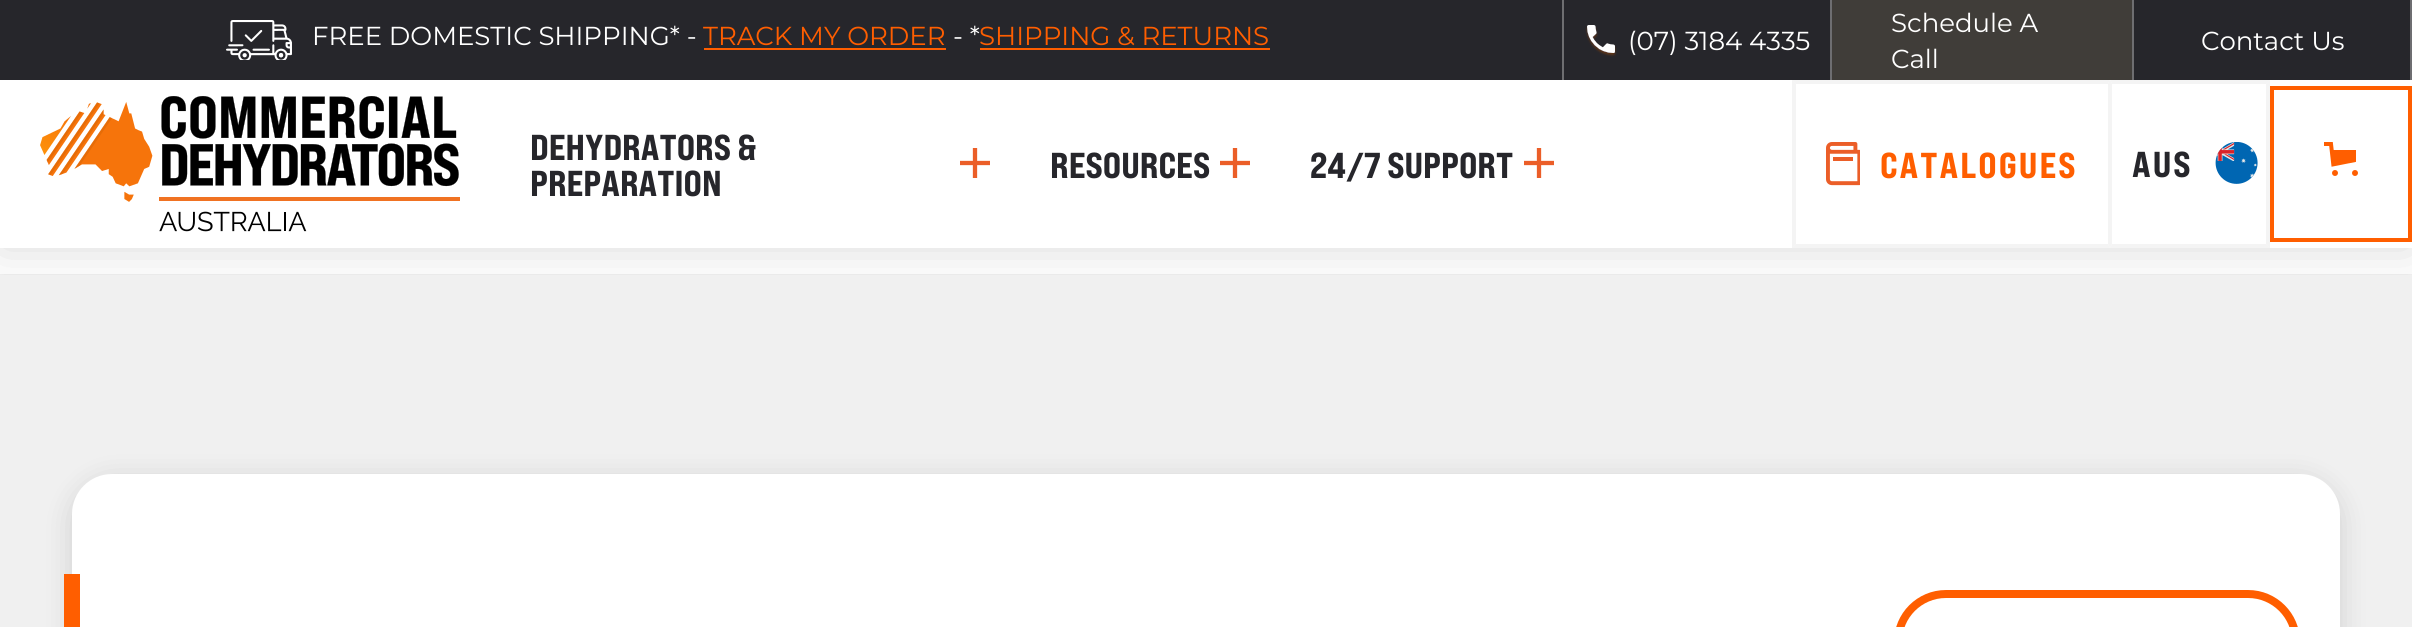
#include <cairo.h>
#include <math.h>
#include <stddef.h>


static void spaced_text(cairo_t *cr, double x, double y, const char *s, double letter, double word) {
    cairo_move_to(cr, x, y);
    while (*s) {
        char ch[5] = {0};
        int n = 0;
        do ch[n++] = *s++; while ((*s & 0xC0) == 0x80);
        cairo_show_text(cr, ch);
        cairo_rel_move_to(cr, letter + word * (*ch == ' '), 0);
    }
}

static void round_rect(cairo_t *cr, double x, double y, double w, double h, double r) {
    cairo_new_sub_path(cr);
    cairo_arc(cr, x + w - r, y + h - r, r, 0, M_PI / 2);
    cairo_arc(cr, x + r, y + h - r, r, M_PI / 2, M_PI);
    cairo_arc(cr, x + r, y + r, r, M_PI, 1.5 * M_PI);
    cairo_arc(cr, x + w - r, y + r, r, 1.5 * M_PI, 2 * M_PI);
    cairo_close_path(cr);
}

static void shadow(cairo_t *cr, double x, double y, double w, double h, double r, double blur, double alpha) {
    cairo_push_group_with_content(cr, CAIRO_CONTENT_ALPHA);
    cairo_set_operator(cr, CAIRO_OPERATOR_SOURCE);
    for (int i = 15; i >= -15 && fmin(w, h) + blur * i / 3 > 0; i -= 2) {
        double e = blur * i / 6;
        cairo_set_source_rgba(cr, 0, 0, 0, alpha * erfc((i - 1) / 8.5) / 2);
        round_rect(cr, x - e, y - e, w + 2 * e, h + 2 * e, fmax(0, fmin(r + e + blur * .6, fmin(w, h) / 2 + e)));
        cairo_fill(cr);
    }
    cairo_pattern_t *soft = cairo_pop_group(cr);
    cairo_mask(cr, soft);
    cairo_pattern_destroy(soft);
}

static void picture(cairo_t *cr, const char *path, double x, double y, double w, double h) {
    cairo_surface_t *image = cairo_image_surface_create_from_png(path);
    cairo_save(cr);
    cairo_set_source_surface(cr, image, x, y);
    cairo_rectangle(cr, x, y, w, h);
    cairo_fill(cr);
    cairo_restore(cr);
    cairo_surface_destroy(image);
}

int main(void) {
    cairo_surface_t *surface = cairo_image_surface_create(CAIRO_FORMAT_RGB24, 2412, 627);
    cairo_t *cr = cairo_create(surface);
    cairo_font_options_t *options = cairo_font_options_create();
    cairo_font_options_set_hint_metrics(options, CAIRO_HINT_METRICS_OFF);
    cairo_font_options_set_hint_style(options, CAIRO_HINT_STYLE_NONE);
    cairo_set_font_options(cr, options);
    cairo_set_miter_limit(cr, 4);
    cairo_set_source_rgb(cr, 1, 1, 1);
    cairo_paint(cr);
    cairo_set_source_rgb(cr, 0.941, 0.941, 0.941);
    cairo_rectangle(cr, 0, 274, 2412, 353);
    cairo_fill(cr);
    cairo_save(cr);
    cairo_rectangle(cr, 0, 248, 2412, 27);
    cairo_clip(cr);
    cairo_set_source_rgb(cr, 0, 0, 0);
    shadow(cr, 0, 80, 2412, 168, 0, 24, 0.15);
    cairo_restore(cr);
    cairo_set_source_rgb(cr, 0.149, 0.149, 0.169);
    cairo_rectangle(cr, 0, 0, 2410, 80);
    cairo_fill(cr);
    picture(cr, "img1.png", 226, 20, 66, 40);
    cairo_select_font_face(cr, "Montserrat", CAIRO_FONT_SLANT_NORMAL, CAIRO_FONT_WEIGHT_NORMAL);
    cairo_set_font_size(cr, 26);
    cairo_set_source_rgb(cr, 1, 1, 1);
    cairo_move_to(cr, 312, 45);
    cairo_show_text(cr, "FREE DOMESTIC SHIPPING* -");
    cairo_set_source_rgb(cr, 1, 0.369, 0);
    cairo_move_to(cr, 703, 45);
    cairo_show_text(cr, "TRACK MY ORDER");
    cairo_rectangle(cr, 704, 48, 242, 2);
    cairo_fill(cr);
    cairo_set_source_rgb(cr, 1, 1, 1);
    cairo_move_to(cr, 953, 45);
    cairo_show_text(cr, "- *");
    cairo_set_source_rgb(cr, 1, 0.369, 0);
    cairo_move_to(cr, 979, 45);
    cairo_show_text(cr, "SHIPPING & RETURNS");
    cairo_rectangle(cr, 980, 48, 290, 2);
    cairo_fill(cr);
    cairo_set_source_rgb(cr, 0.431, 0.431, 0.443);
    cairo_rectangle(cr, 1830, 0, 2, 80);
    cairo_fill(cr);
    cairo_rectangle(cr, 1562, 0, 2, 80);
    cairo_fill(cr);
    picture(cr, "img2.png", 1585, 25, 32, 32);
    cairo_set_source_rgb(cr, 1, 1, 1);
    cairo_move_to(cr, 1628, 50);
    cairo_show_text(cr, "(07) 3184 4335");
    cairo_set_source_rgb(cr, 0.251, 0.239, 0.224);
    cairo_rectangle(cr, 1832, 0, 300, 80);
    cairo_fill(cr);
    cairo_set_source_rgb(cr, 1, 1, 1);
    cairo_move_to(cr, 1891, 32);
    cairo_show_text(cr, "Schedule A");
    cairo_move_to(cr, 1891, 68);
    cairo_show_text(cr, "Call");
    cairo_set_source_rgb(cr, 0.431, 0.431, 0.443);
    cairo_rectangle(cr, 2410, 0, 2, 80);
    cairo_fill(cr);
    cairo_rectangle(cr, 2132, 0, 2, 80);
    cairo_fill(cr);
    cairo_set_source_rgb(cr, 1, 1, 1);
    cairo_move_to(cr, 2201, 50);
    cairo_show_text(cr, "Contact Us");
    picture(cr, "img3.png", 40, 96, 420, 136);
    cairo_select_font_face(cr, "Bebas Neue ExtraBold", CAIRO_FONT_SLANT_NORMAL, CAIRO_FONT_WEIGHT_NORMAL);
    cairo_set_font_size(cr, 36);
    cairo_set_source_rgb(cr, 0.149, 0.149, 0.169);
    cairo_move_to(cr, 530, 160);
    cairo_show_text(cr, "DEHYDRATORS &");
    cairo_move_to(cr, 530, 196);
    cairo_show_text(cr, "PREPARATION");
    picture(cr, "img4.png", 960, 148, 30, 30);
    cairo_move_to(cr, 1050, 178);
    cairo_show_text(cr, "RESOURCES");
    picture(cr, "img4.png", 1220, 148, 30, 30);
    cairo_move_to(cr, 1310, 178);
    cairo_show_text(cr, "24/7 SUPPORT");
    picture(cr, "img4.png", 1524, 148, 30, 30);
    cairo_set_source_rgb(cr, 0.957, 0.957, 0.957);
    cairo_new_path(cr);
    cairo_move_to(cr, 1792, 80);
    cairo_line_to(cr, 2110, 80);
    cairo_line_to(cr, 2108, 84);
    cairo_line_to(cr, 1796, 84);
    cairo_close_path(cr);
    cairo_fill(cr);
    cairo_set_source_rgba(cr, 0.89, 0.89, 0.89, 0.38);
    cairo_new_path(cr);
    cairo_move_to(cr, 2110, 80);
    cairo_line_to(cr, 2110, 248);
    cairo_line_to(cr, 2108, 244);
    cairo_line_to(cr, 2108, 84);
    cairo_close_path(cr);
    cairo_fill(cr);
    cairo_new_path(cr);
    cairo_move_to(cr, 2110, 248);
    cairo_line_to(cr, 1792, 248);
    cairo_line_to(cr, 1796, 244);
    cairo_line_to(cr, 2108, 244);
    cairo_close_path(cr);
    cairo_fill(cr);
    cairo_new_path(cr);
    cairo_move_to(cr, 1792, 248);
    cairo_line_to(cr, 1792, 80);
    cairo_line_to(cr, 1796, 84);
    cairo_line_to(cr, 1796, 244);
    cairo_close_path(cr);
    cairo_fill(cr);
    picture(cr, "img5.png", 1826, 142, 34, 44);
    cairo_set_source_rgb(cr, 1, 0.369, 0);
    spaced_text(cr, 1880, 178, "CATALOGUES", 2, 0);
    cairo_set_source_rgb(cr, 0.957, 0.957, 0.957);
    cairo_new_path(cr);
    cairo_move_to(cr, 2110, 80);
    cairo_line_to(cr, 2270, 80);
    cairo_line_to(cr, 2266, 84);
    cairo_line_to(cr, 2112, 84);
    cairo_close_path(cr);
    cairo_fill(cr);
    cairo_set_source_rgba(cr, 0.89, 0.89, 0.89, 0.38);
    cairo_new_path(cr);
    cairo_move_to(cr, 2270, 80);
    cairo_line_to(cr, 2270, 248);
    cairo_line_to(cr, 2266, 244);
    cairo_line_to(cr, 2266, 84);
    cairo_close_path(cr);
    cairo_fill(cr);
    cairo_new_path(cr);
    cairo_move_to(cr, 2270, 248);
    cairo_line_to(cr, 2110, 248);
    cairo_line_to(cr, 2112, 244);
    cairo_line_to(cr, 2266, 244);
    cairo_close_path(cr);
    cairo_fill(cr);
    cairo_new_path(cr);
    cairo_move_to(cr, 2110, 248);
    cairo_line_to(cr, 2110, 80);
    cairo_line_to(cr, 2112, 84);
    cairo_line_to(cr, 2112, 244);
    cairo_close_path(cr);
    cairo_fill(cr);
    cairo_set_source_rgb(cr, 0.149, 0.149, 0.169);
    spaced_text(cr, 2132, 177, "AUS", 2, 0);
    picture(cr, "img6.png", 2215, 142, 43, 42);
    cairo_rectangle(cr, 2272, 88, 138, 152);
    cairo_set_source_rgb(cr, 1, 0.369, 0);
    cairo_set_line_width(cr, 4);
    cairo_stroke(cr);
    picture(cr, "img7.png", 2324, 142, 34, 34);
    cairo_set_source_rgb(cr, 0, 0, 0);
    shadow(cr, 72, 480, 2268, 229, 40, 14, 0.14);
    cairo_set_source_rgb(cr, 1, 1, 1);
    round_rect(cr, 72, 474, 2268, 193, 40);
    cairo_fill(cr);
    cairo_set_source_rgb(cr, 1, 0.369, 0);
    cairo_rectangle(cr, 64, 574, 16, 53);
    cairo_fill(cr);
    round_rect(cr, 1898, 594, 398, 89, 48);
    cairo_set_line_width(cr, 8);
    cairo_stroke(cr);
    cairo_surface_write_to_png(surface, "page.png");
    cairo_font_options_destroy(options);
    cairo_destroy(cr);
    cairo_surface_destroy(surface);
    return 0;
}
